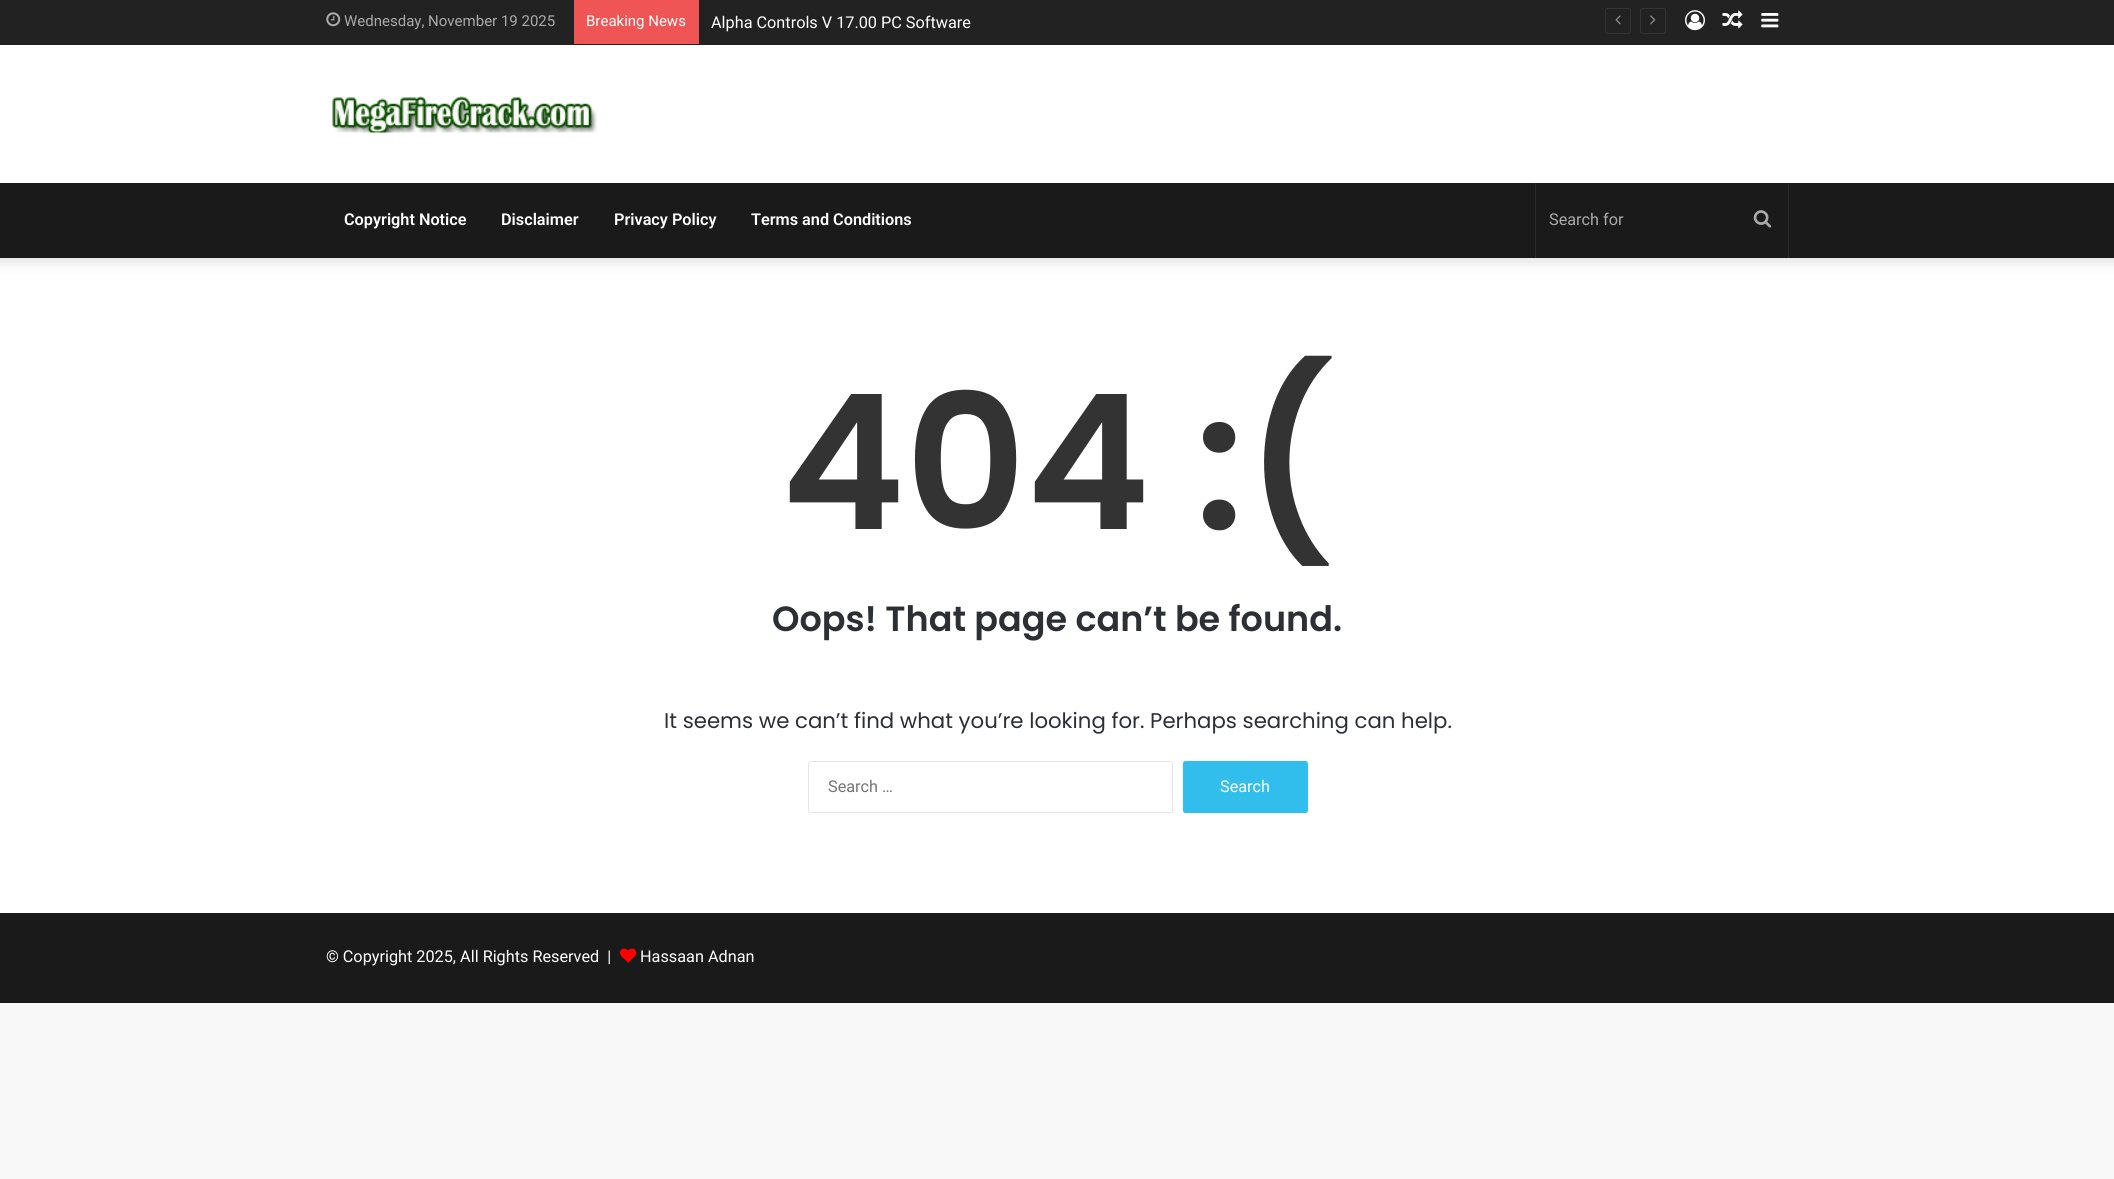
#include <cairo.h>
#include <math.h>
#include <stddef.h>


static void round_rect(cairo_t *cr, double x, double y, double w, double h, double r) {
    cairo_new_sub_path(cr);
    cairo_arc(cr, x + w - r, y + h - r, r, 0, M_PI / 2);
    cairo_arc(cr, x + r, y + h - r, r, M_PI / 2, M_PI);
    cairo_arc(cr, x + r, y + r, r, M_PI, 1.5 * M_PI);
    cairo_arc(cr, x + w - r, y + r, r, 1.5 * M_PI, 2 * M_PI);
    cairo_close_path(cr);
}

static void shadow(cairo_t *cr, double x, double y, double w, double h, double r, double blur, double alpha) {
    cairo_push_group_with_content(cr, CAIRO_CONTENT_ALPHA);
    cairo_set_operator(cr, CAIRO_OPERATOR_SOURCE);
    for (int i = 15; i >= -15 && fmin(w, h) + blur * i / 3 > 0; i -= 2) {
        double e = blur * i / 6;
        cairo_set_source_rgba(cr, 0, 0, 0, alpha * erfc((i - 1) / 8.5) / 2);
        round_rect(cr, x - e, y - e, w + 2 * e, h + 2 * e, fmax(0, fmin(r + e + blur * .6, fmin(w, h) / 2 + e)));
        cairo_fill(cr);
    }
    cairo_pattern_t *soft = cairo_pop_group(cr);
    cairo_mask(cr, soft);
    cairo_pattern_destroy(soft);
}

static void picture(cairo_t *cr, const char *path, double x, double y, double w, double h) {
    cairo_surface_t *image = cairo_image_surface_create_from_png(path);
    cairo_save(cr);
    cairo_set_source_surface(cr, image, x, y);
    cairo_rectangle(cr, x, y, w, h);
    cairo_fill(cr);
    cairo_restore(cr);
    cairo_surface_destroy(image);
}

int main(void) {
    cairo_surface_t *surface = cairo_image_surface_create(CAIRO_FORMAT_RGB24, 2114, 1179);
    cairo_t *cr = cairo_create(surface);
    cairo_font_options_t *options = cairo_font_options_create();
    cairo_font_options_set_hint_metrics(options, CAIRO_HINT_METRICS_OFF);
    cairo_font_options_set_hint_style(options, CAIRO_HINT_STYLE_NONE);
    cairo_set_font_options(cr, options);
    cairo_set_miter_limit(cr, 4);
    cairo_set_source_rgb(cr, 0.969, 0.969, 0.969);
    cairo_paint(cr);
    cairo_set_source_rgb(cr, 1, 1, 1);
    cairo_rectangle(cr, 0, 258, 2114, 655);
    cairo_fill(cr);
    cairo_set_source_rgb(cr, 0, 0, 0);
    shadow(cr, -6, -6, 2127, 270, 0, 6, 0.1);
    cairo_set_source_rgb(cr, 1, 1, 1);
    cairo_rectangle(cr, 0, 45, 2114, 138);
    cairo_fill(cr);
    cairo_set_source_rgb(cr, 0.133, 0.133, 0.133);
    cairo_rectangle(cr, 0, 0, 2114, 44);
    cairo_fill(cr);
    cairo_set_source_rgb(cr, 0.122, 0.122, 0.122);
    cairo_rectangle(cr, 0, 44, 2114, 1);
    cairo_fill(cr);
    picture(cr, "img1.png", 326, 12, 15, 15);
    cairo_select_font_face(cr, "Roboto", CAIRO_FONT_SLANT_NORMAL, CAIRO_FONT_WEIGHT_NORMAL);
    cairo_set_font_size(cr, 15);
    cairo_set_source_rgb(cr, 0.667, 0.667, 0.667);
    cairo_move_to(cr, 344, 26);
    cairo_show_text(cr, "Wednesday, November 19 2025");
    cairo_set_source_rgb(cr, 0.941, 0.333, 0.333);
    cairo_rectangle(cr, 574, 0, 125, 44);
    cairo_fill(cr);
    cairo_set_source_rgb(cr, 1, 1, 1);
    cairo_move_to(cr, 586, 26);
    cairo_show_text(cr, "Breaking News");
    cairo_set_font_size(cr, 16.25);
    cairo_move_to(cr, 711, 28);
    cairo_show_text(cr, "Alpha Controls V 17.00 PC Software");
    round_rect(cr, 1605.5, 8.5, 25, 25, 2);
    cairo_set_source_rgb(cr, 0.204, 0.204, 0.204);
    cairo_set_line_width(cr, 1);
    cairo_stroke(cr);
    picture(cr, "img2.png", 1615, 15, 6, 10);
    round_rect(cr, 1640.5, 8.5, 25, 25, 2);
    cairo_stroke(cr);
    picture(cr, "img3.png", 1650, 15, 6, 10);
    picture(cr, "img4.png", 1685, 10, 20, 21);
    picture(cr, "img5.png", 1722, 10, 21, 19);
    picture(cr, "img6.png", 1761, 13, 18, 15);
    picture(cr, "img7.png", 332, 96, 265, 37);
    cairo_set_source_rgb(cr, 0.102, 0.102, 0.102);
    cairo_rectangle(cr, 0, 183, 2114, 75);
    cairo_fill(cr);
    cairo_select_font_face(cr, "Roboto SemiBold", CAIRO_FONT_SLANT_NORMAL, CAIRO_FONT_WEIGHT_NORMAL);
    cairo_set_source_rgb(cr, 1, 1, 1);
    cairo_move_to(cr, 344, 225);
    cairo_show_text(cr, "Copyright Notice");
    cairo_move_to(cr, 501, 225);
    cairo_show_text(cr, "Disclaimer");
    cairo_move_to(cr, 614, 225);
    cairo_show_text(cr, "Privacy Policy");
    cairo_move_to(cr, 751, 225);
    cairo_show_text(cr, "Terms and Conditions");
    cairo_set_source_rgb(cr, 0.165, 0.165, 0.165);
    cairo_rectangle(cr, 1788, 183, 1, 75);
    cairo_fill(cr);
    cairo_rectangle(cr, 1535, 183, 1, 75);
    cairo_fill(cr);
    cairo_select_font_face(cr, "Roboto", CAIRO_FONT_SLANT_NORMAL, CAIRO_FONT_WEIGHT_NORMAL);
    cairo_set_source_rgb(cr, 0.667, 0.667, 0.667);
    cairo_move_to(cr, 1549, 225);
    cairo_show_text(cr, "Search for");
    picture(cr, "img8.png", 1753, 210, 19, 18);
    cairo_select_font_face(cr, "Poppins SemiBold", CAIRO_FONT_SLANT_NORMAL, CAIRO_FONT_WEIGHT_NORMAL);
    cairo_set_font_size(cr, 187.5);
    cairo_set_source_rgb(cr, 0.2, 0.2, 0.2);
    cairo_move_to(cr, 781, 529);
    cairo_show_text(cr, "404 :(");
    cairo_set_font_size(cr, 35);
    cairo_set_source_rgb(cr, 0.173, 0.184, 0.204);
    cairo_move_to(cr, 772, 631);
    cairo_show_text(cr, "Oops! That page can’t be found.");
    cairo_select_font_face(cr, "Poppins", CAIRO_FONT_SLANT_NORMAL, CAIRO_FONT_WEIGHT_NORMAL);
    cairo_set_font_size(cr, 21.25);
    cairo_move_to(cr, 664, 728);
    cairo_show_text(cr, "It seems we can’t find what you’re looking for. Perhaps searching can help.");
    round_rect(cr, 808.5, 761.5, 364, 51, 2);
    cairo_set_source_rgb(cr, 0.902, 0.902, 0.902);
    cairo_stroke(cr);
    cairo_select_font_face(cr, "Roboto", CAIRO_FONT_SLANT_NORMAL, CAIRO_FONT_WEIGHT_NORMAL);
    cairo_set_font_size(cr, 16.25);
    cairo_set_source_rgb(cr, 0.459, 0.459, 0.459);
    cairo_move_to(cr, 828, 792);
    cairo_show_text(cr, "Search …");
    cairo_set_source_rgb(cr, 0.196, 0.745, 0.922);
    round_rect(cr, 1183, 761, 125, 52, 2.5);
    cairo_fill(cr);
    cairo_set_source_rgb(cr, 1, 1, 1);
    cairo_move_to(cr, 1220, 792);
    cairo_show_text(cr, "Search");
    cairo_set_source_rgb(cr, 0.102, 0.102, 0.102);
    cairo_rectangle(cr, 0, 913, 2114, 90);
    cairo_fill(cr);
    cairo_set_source_rgb(cr, 1, 1, 1);
    cairo_move_to(cr, 326, 962);
    cairo_show_text(cr, "© Copyright 2025, All Rights Reserved  |");
    picture(cr, "img9.png", 620, 948, 17, 15);
    cairo_move_to(cr, 640, 962);
    cairo_show_text(cr, "Hassaan Adnan");
    cairo_surface_write_to_png(surface, "page.png");
    cairo_font_options_destroy(options);
    cairo_destroy(cr);
    cairo_surface_destroy(surface);
    return 0;
}
